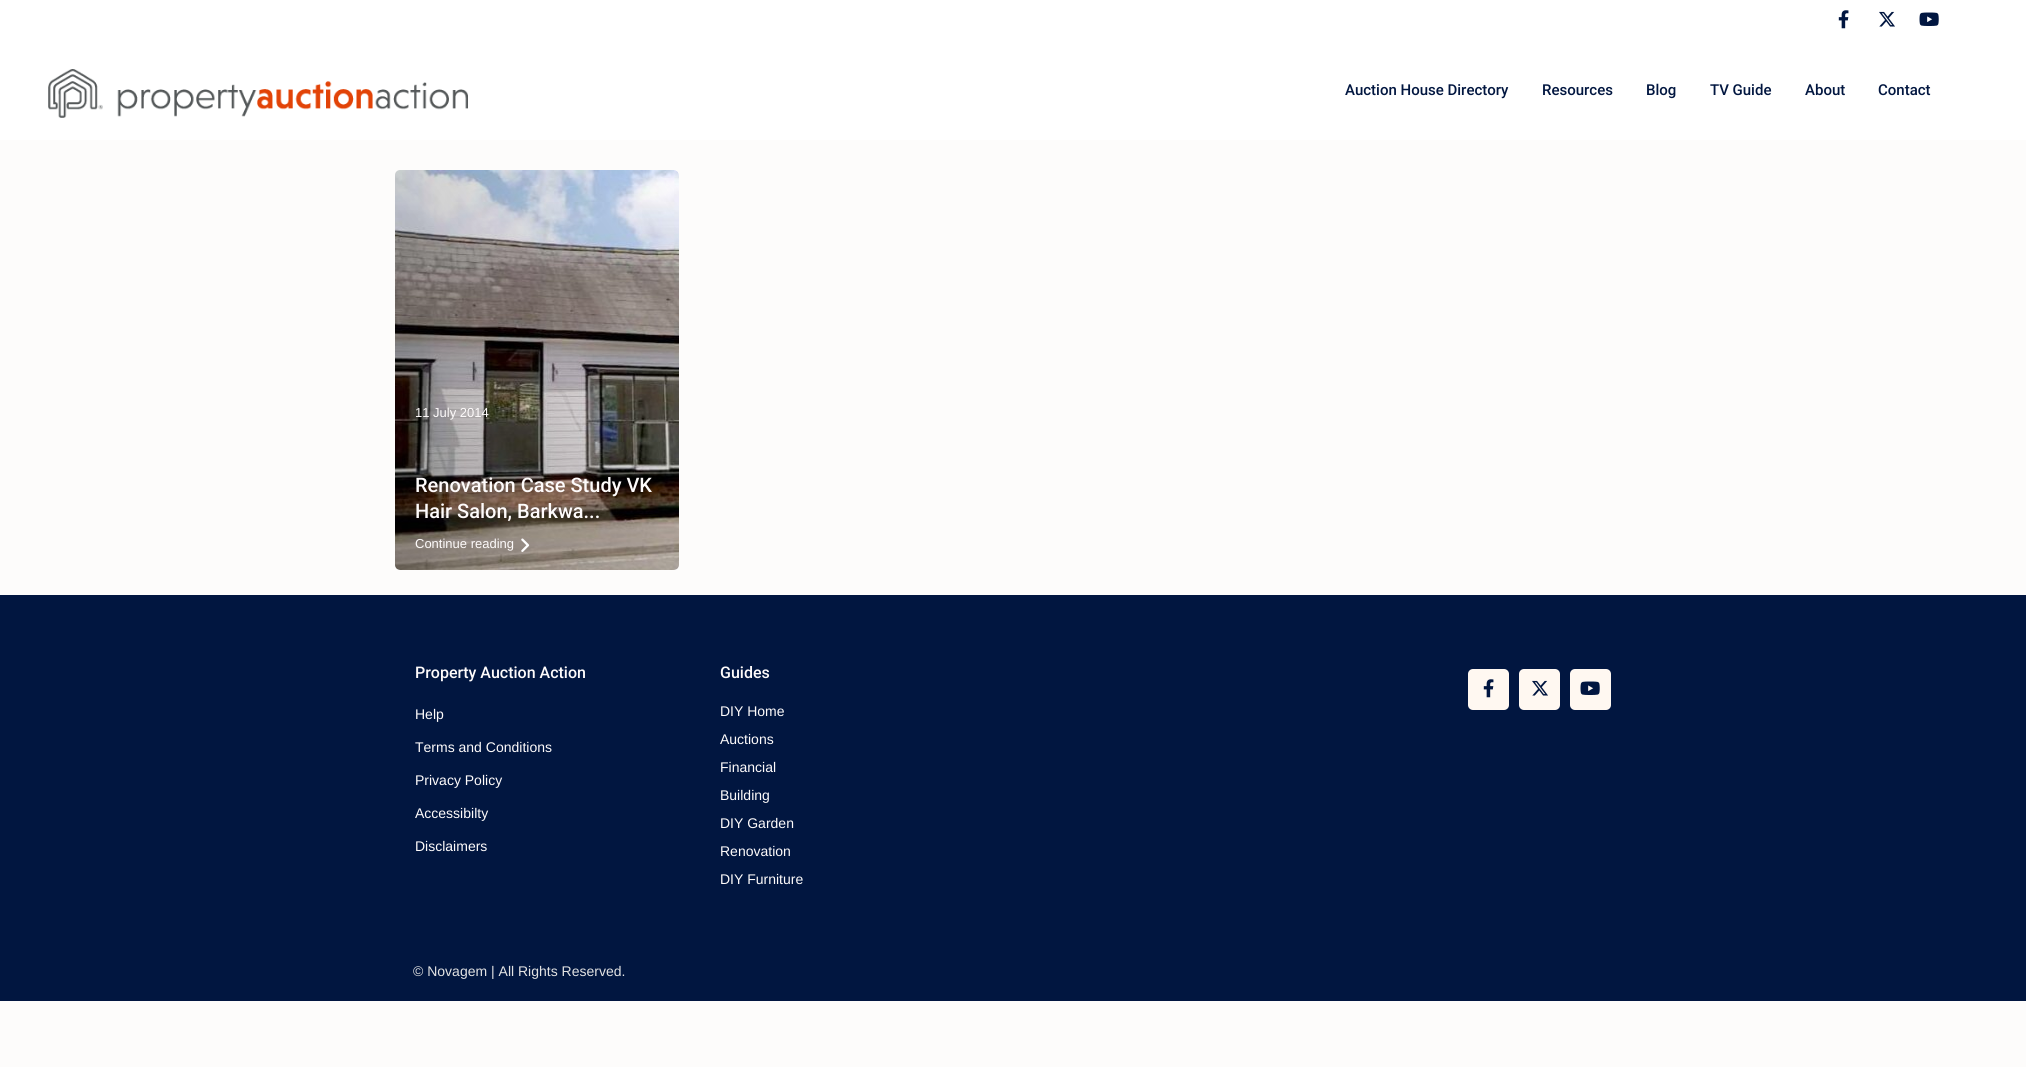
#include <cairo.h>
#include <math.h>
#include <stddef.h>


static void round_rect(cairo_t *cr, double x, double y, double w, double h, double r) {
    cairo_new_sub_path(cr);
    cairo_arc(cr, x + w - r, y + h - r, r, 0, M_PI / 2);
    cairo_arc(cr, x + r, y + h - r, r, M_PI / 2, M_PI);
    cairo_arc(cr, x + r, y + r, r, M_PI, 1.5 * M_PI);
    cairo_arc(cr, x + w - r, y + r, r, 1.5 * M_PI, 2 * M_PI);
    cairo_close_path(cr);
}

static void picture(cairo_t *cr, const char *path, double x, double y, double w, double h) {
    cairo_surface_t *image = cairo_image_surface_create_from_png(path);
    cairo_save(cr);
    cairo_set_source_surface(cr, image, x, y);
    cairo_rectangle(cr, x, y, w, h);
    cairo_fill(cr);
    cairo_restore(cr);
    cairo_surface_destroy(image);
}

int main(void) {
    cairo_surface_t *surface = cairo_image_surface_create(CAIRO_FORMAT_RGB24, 2026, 1067);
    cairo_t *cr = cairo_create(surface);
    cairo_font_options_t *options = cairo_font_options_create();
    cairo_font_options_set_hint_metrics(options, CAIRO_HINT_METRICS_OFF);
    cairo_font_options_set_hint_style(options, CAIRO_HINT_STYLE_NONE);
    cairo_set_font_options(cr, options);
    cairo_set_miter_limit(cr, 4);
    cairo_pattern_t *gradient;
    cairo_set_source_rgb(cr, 0.992, 0.988, 0.984);
    cairo_paint(cr);
    cairo_set_source_rgb(cr, 1, 1, 1);
    cairo_rectangle(cr, 0, 0, 2026, 140);
    cairo_fill(cr);
    picture(cr, "img1.png", 1838, 10, 11, 19);
    picture(cr, "img2.png", 1879, 11, 16, 16);
    picture(cr, "img3.png", 1919, 12, 20, 14);
    picture(cr, "img4.png", 48, 69, 420, 49);
    cairo_select_font_face(cr, "Roboto Medium", CAIRO_FONT_SLANT_NORMAL, CAIRO_FONT_WEIGHT_NORMAL);
    cairo_set_font_size(cr, 15);
    cairo_set_source_rgb(cr, 0.004, 0.086, 0.251);
    cairo_move_to(cr, 1345, 95);
    cairo_show_text(cr, "Auction House Directory");
    cairo_move_to(cr, 1542, 95);
    cairo_show_text(cr, "Resources");
    cairo_move_to(cr, 1646, 95);
    cairo_show_text(cr, "Blog");
    cairo_move_to(cr, 1710, 95);
    cairo_show_text(cr, "TV Guide");
    cairo_move_to(cr, 1805, 95);
    cairo_show_text(cr, "About");
    cairo_move_to(cr, 1878, 95);
    cairo_show_text(cr, "Contact");
    cairo_set_source_rgb(cr, 1, 1, 1);
    round_rect(cr, 395, 170, 284, 400, 5);
    cairo_fill(cr);
    picture(cr, "img5.png", 395, 170, 284, 400);
    gradient = cairo_pattern_create_linear(348, 504, 726, 236);
    cairo_pattern_add_color_stop_rgba(gradient, 0, 0, 0, 0, 0.38);
    cairo_pattern_add_color_stop_rgba(gradient, 1, 0, 0, 0, 0);
    cairo_set_source(cr, gradient);
    cairo_pattern_destroy(gradient);
    round_rect(cr, 395, 170, 284, 400, 5);
    cairo_fill(cr);
    cairo_select_font_face(cr, "Liberation Sans", CAIRO_FONT_SLANT_NORMAL, CAIRO_FONT_WEIGHT_NORMAL);
    cairo_set_font_size(cr, 13);
    cairo_set_source_rgb(cr, 0.996, 0.984, 0.984);
    cairo_move_to(cr, 415, 417);
    cairo_show_text(cr, "11 July 2014");
    cairo_select_font_face(cr, "Roboto Medium", CAIRO_FONT_SLANT_NORMAL, CAIRO_FONT_WEIGHT_NORMAL);
    cairo_set_font_size(cr, 20);
    cairo_move_to(cr, 415, 492);
    cairo_show_text(cr, "Renovation Case Study VK");
    cairo_move_to(cr, 415, 518);
    cairo_show_text(cr, "Hair Salon, Barkwa...");
    cairo_select_font_face(cr, "Liberation Sans", CAIRO_FONT_SLANT_NORMAL, CAIRO_FONT_WEIGHT_NORMAL);
    cairo_set_font_size(cr, 13);
    cairo_move_to(cr, 415, 548);
    cairo_show_text(cr, "Continue reading");
    picture(cr, "img6.png", 521, 538, 9, 14);
    cairo_set_source_rgb(cr, 0.004, 0.086, 0.251);
    cairo_rectangle(cr, 0, 595, 2026, 406);
    cairo_fill(cr);
    cairo_select_font_face(cr, "Roboto Medium", CAIRO_FONT_SLANT_NORMAL, CAIRO_FONT_WEIGHT_NORMAL);
    cairo_set_font_size(cr, 16);
    cairo_set_source_rgb(cr, 0.996, 0.984, 0.984);
    cairo_move_to(cr, 415, 678);
    cairo_show_text(cr, "Property Auction Action");
    cairo_select_font_face(cr, "Liberation Sans", CAIRO_FONT_SLANT_NORMAL, CAIRO_FONT_WEIGHT_NORMAL);
    cairo_set_font_size(cr, 14);
    cairo_move_to(cr, 415, 719);
    cairo_show_text(cr, "Help");
    cairo_move_to(cr, 415, 752);
    cairo_show_text(cr, "Terms and Conditions");
    cairo_move_to(cr, 415, 785);
    cairo_show_text(cr, "Privacy Policy");
    cairo_move_to(cr, 415, 818);
    cairo_show_text(cr, "Accessibilty");
    cairo_move_to(cr, 415, 851);
    cairo_show_text(cr, "Disclaimers");
    cairo_select_font_face(cr, "Roboto Medium", CAIRO_FONT_SLANT_NORMAL, CAIRO_FONT_WEIGHT_NORMAL);
    cairo_set_font_size(cr, 16);
    cairo_move_to(cr, 720, 678);
    cairo_show_text(cr, "Guides");
    cairo_select_font_face(cr, "Liberation Sans", CAIRO_FONT_SLANT_NORMAL, CAIRO_FONT_WEIGHT_NORMAL);
    cairo_set_font_size(cr, 14);
    cairo_move_to(cr, 720, 716);
    cairo_show_text(cr, "DIY Home");
    cairo_move_to(cr, 720, 744);
    cairo_show_text(cr, "Auctions");
    cairo_move_to(cr, 720, 772);
    cairo_show_text(cr, "Financial");
    cairo_move_to(cr, 720, 800);
    cairo_show_text(cr, "Building");
    cairo_move_to(cr, 720, 828);
    cairo_show_text(cr, "DIY Garden");
    cairo_move_to(cr, 720, 856);
    cairo_show_text(cr, "Renovation");
    cairo_move_to(cr, 720, 884);
    cairo_show_text(cr, "DIY Furniture");
    cairo_set_source_rgb(cr, 1, 0.969, 0.945);
    round_rect(cr, 1468, 669, 41, 41, 5);
    cairo_fill(cr);
    picture(cr, "img7.png", 1483, 679, 11, 19);
    round_rect(cr, 1519, 669, 41, 41, 5);
    cairo_fill(cr);
    picture(cr, "img8.png", 1532, 680, 16, 16);
    round_rect(cr, 1570, 669, 41, 41, 5);
    cairo_fill(cr);
    picture(cr, "img9.png", 1580, 681, 20, 14);
    cairo_set_source_rgb(cr, 0.89, 0.89, 0.89);
    cairo_move_to(cr, 413, 976);
    cairo_show_text(cr, "© Novagem | All Rights Reserved.");
    cairo_surface_write_to_png(surface, "page.png");
    cairo_font_options_destroy(options);
    cairo_destroy(cr);
    cairo_surface_destroy(surface);
    return 0;
}
